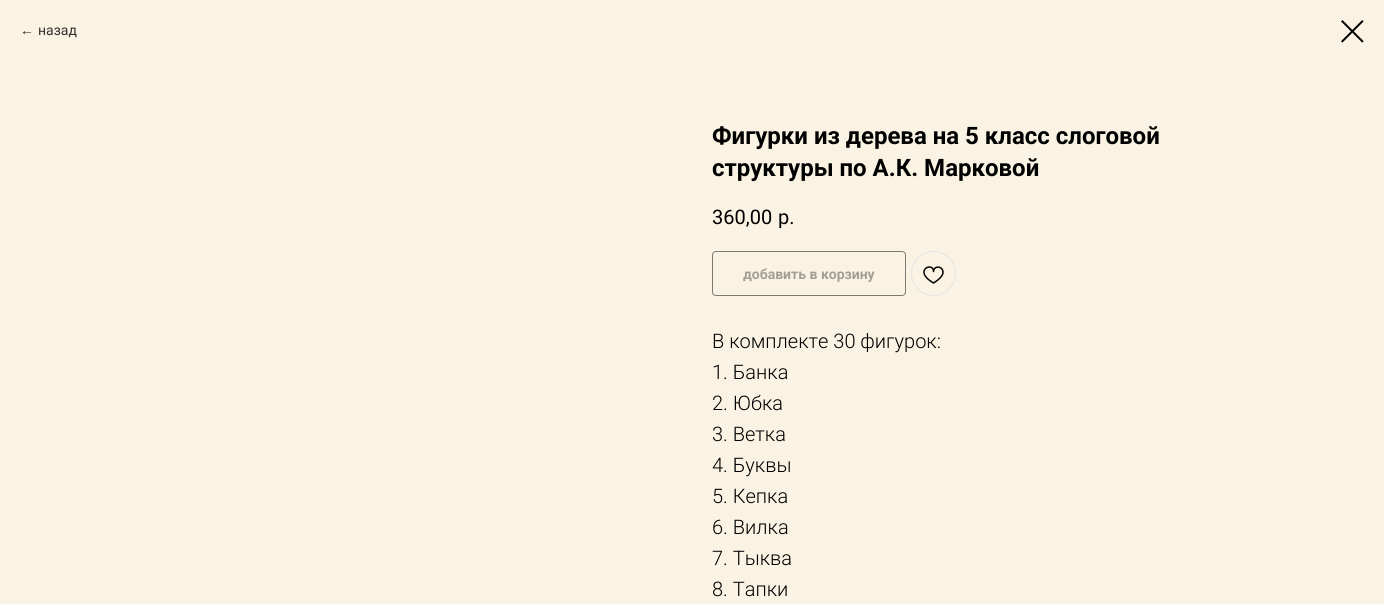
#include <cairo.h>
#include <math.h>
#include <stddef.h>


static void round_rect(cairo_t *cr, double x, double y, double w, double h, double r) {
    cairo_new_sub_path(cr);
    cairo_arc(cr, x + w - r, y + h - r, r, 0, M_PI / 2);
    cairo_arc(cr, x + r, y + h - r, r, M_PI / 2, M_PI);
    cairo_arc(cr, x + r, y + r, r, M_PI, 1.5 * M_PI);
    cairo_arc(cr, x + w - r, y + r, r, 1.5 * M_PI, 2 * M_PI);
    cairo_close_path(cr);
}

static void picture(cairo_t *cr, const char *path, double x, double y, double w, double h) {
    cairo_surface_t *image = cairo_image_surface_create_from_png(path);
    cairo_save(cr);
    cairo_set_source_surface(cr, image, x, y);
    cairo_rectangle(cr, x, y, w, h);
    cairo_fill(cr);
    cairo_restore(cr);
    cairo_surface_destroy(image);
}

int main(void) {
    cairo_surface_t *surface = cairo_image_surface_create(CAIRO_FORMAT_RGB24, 1384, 604);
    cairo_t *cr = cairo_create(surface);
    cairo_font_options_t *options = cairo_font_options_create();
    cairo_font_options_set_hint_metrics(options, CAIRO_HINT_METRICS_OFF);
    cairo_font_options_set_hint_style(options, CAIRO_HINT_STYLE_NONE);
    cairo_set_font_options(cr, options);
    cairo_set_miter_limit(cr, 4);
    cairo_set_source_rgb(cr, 0.98, 0.953, 0.89);
    cairo_paint(cr);
    cairo_select_font_face(cr, "Liberation Sans", CAIRO_FONT_SLANT_NORMAL, CAIRO_FONT_WEIGHT_NORMAL);
    cairo_set_font_size(cr, 14);
    cairo_set_source_rgb(cr, 0.196, 0.192, 0.176);
    cairo_move_to(cr, 20, 35);
    cairo_show_text(cr, "←");
    cairo_select_font_face(cr, "Roboto", CAIRO_FONT_SLANT_NORMAL, CAIRO_FONT_WEIGHT_NORMAL);
    cairo_move_to(cr, 38, 35);
    cairo_show_text(cr, "назад");
    picture(cr, "img1.png", 1341, 20, 23, 23);
    cairo_select_font_face(cr, "Roboto", CAIRO_FONT_SLANT_NORMAL, CAIRO_FONT_WEIGHT_BOLD);
    cairo_set_font_size(cr, 24);
    cairo_set_source_rgb(cr, 0, 0, 0);
    cairo_move_to(cr, 712, 144);
    cairo_show_text(cr, "Фигурки из дерева на 5 класс слоговой");
    cairo_move_to(cr, 712, 176);
    cairo_show_text(cr, "структуры по А.К. Марковой");
    cairo_select_font_face(cr, "Roboto", CAIRO_FONT_SLANT_NORMAL, CAIRO_FONT_WEIGHT_NORMAL);
    cairo_set_font_size(cr, 20);
    cairo_move_to(cr, 712, 224);
    cairo_show_text(cr, "360,00");
    cairo_move_to(cr, 778, 224);
    cairo_show_text(cr, "р.");
    round_rect(cr, 712.5, 251.5, 193, 44, 3.5);
    cairo_set_source_rgb(cr, 0.49, 0.478, 0.447);
    cairo_set_line_width(cr, 1);
    cairo_stroke(cr);
    cairo_select_font_face(cr, "Roboto", CAIRO_FONT_SLANT_NORMAL, CAIRO_FONT_WEIGHT_BOLD);
    cairo_set_font_size(cr, 14);
    cairo_set_source_rgb(cr, 0.639, 0.62, 0.58);
    cairo_move_to(cr, 743, 279);
    cairo_show_text(cr, "добавить в корзину");
    cairo_new_path(cr);
    cairo_arc(cr, 933.5, 273.5, 22, 0, 2 * M_PI);
    cairo_set_source_rgb(cr, 0.894, 0.894, 0.894);
    cairo_stroke(cr);
    cairo_new_path(cr);
    cairo_move_to(cr, 943, 272.5);
    cairo_curve_to(cr, 943, 277.5, 933.5, 283, 933.5, 283);
    cairo_curve_to(cr, 912, 270.5, 933.5, 261, 933.5, 271.5);
    cairo_curve_to(cr, 933.5, 265.5, 943, 265.5, 943, 272.5);
    cairo_close_path(cr);
    cairo_set_source_rgb(cr, 0, 0, 0);
    cairo_set_line_width(cr, 1.5);
    cairo_set_line_join(cr, CAIRO_LINE_JOIN_ROUND);
    cairo_stroke(cr);
    cairo_select_font_face(cr, "Roboto Light", CAIRO_FONT_SLANT_NORMAL, CAIRO_FONT_WEIGHT_NORMAL);
    cairo_set_font_size(cr, 20);
    cairo_move_to(cr, 712, 348);
    cairo_show_text(cr, "В комплекте 30 фигурок:");
    cairo_move_to(cr, 712, 379);
    cairo_show_text(cr, "1. Банка");
    cairo_move_to(cr, 712, 410);
    cairo_show_text(cr, "2. Юбка");
    cairo_move_to(cr, 712, 441);
    cairo_show_text(cr, "3. Ветка");
    cairo_move_to(cr, 712, 472);
    cairo_show_text(cr, "4. Буквы");
    cairo_move_to(cr, 712, 503);
    cairo_show_text(cr, "5. Кепка");
    cairo_move_to(cr, 712, 534);
    cairo_show_text(cr, "6. Вилка");
    cairo_move_to(cr, 712, 565);
    cairo_show_text(cr, "7. Тыква");
    cairo_move_to(cr, 712, 596);
    cairo_show_text(cr, "8. Тапки");
    cairo_surface_write_to_png(surface, "page.png");
    cairo_font_options_destroy(options);
    cairo_destroy(cr);
    cairo_surface_destroy(surface);
    return 0;
}
